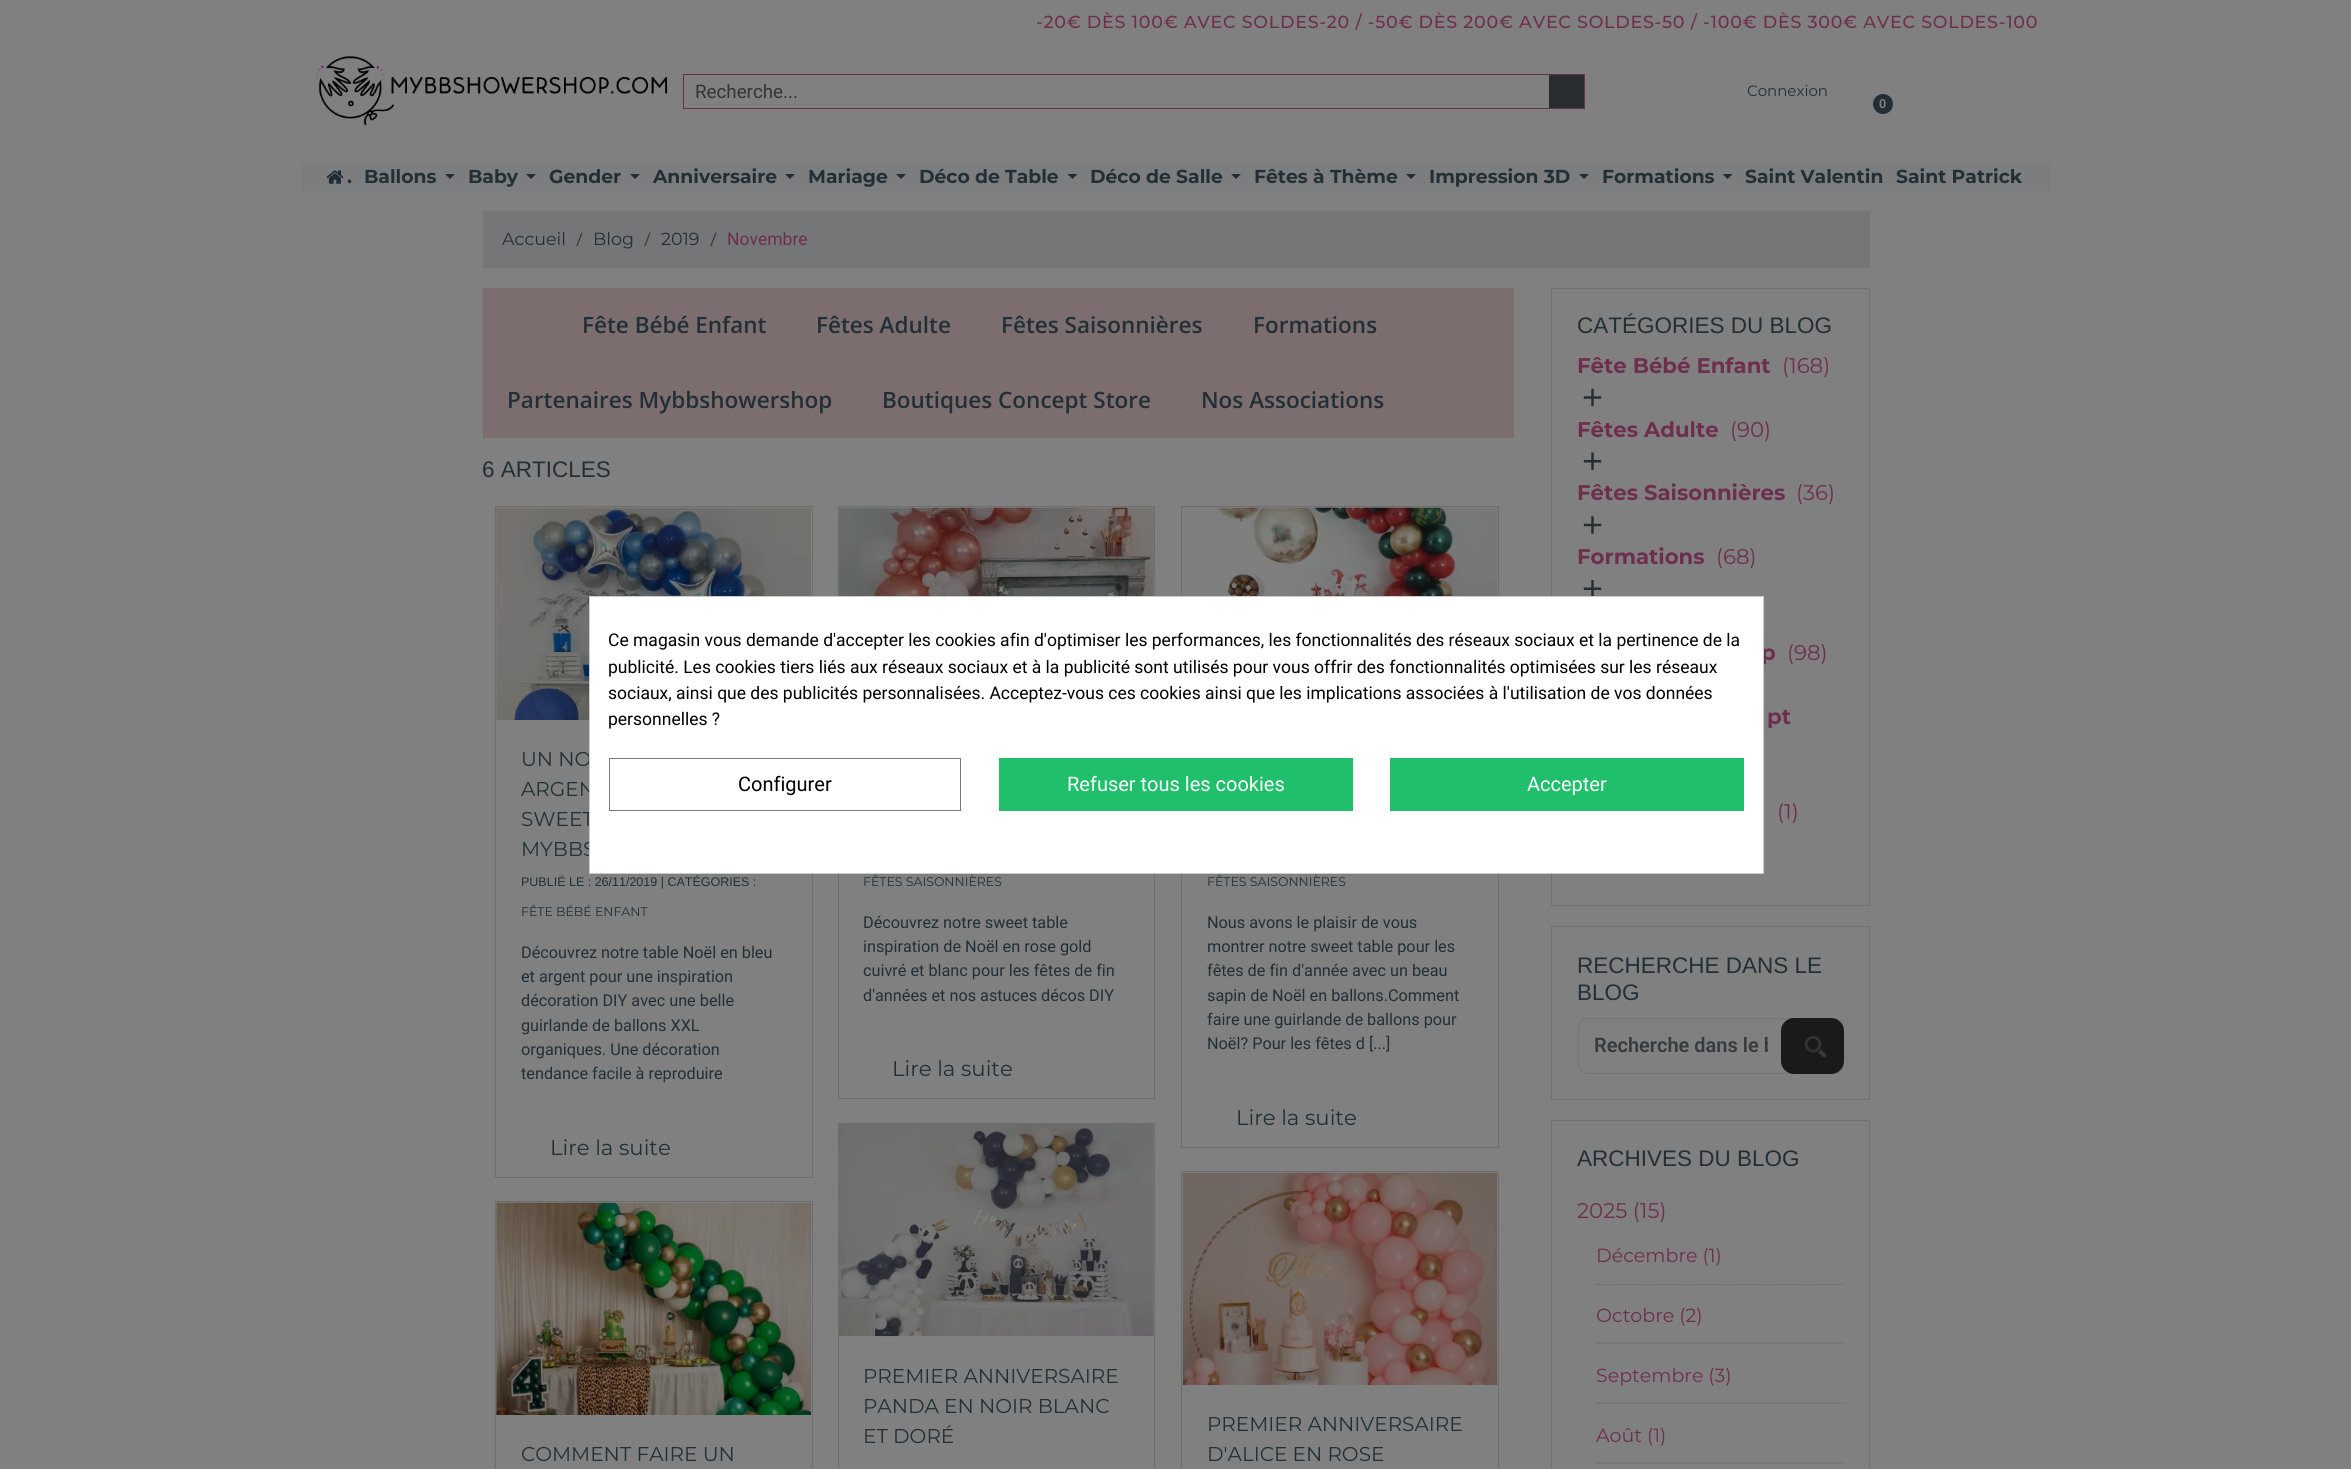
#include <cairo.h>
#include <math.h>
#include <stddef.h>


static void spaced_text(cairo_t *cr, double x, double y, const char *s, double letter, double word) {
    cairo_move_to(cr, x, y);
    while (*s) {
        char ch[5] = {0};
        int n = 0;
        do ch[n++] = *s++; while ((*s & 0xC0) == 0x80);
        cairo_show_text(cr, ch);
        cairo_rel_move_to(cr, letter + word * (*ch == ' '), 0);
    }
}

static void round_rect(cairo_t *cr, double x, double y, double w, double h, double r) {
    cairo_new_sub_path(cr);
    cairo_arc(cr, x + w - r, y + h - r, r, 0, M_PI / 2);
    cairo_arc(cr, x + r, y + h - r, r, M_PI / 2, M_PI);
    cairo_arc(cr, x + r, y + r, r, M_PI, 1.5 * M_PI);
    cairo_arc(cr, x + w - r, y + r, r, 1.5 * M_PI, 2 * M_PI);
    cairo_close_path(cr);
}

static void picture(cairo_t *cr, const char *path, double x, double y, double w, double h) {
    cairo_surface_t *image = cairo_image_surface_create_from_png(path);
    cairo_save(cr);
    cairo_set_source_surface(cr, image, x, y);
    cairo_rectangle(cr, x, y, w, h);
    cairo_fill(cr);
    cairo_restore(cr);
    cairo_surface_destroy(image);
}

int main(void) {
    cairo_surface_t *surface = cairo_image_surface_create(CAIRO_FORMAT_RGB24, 2351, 1469);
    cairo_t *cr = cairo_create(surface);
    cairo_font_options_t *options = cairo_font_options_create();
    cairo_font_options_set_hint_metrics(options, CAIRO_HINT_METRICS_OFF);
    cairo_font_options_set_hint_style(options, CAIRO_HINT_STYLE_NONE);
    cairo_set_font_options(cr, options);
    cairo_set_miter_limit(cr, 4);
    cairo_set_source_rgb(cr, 0.502, 0.502, 0.502);
    cairo_paint(cr);
    cairo_select_font_face(cr, "Montserrat Medium", CAIRO_FONT_SLANT_NORMAL, CAIRO_FONT_WEIGHT_NORMAL);
    cairo_set_font_size(cr, 17.5);
    cairo_set_source_rgb(cr, 0.431, 0.184, 0.31);
    spaced_text(cr, 1036, 28, "-20€ DÈS 100€ AVEC SOLDES-20 / -50€ DÈS 200€ AVEC SOLDES-50 / -100€ DÈS 300€ AVEC SOLDES-100", 0.75, 0);
    picture(cr, "img1.png", 315, 55, 353, 71);
    cairo_rectangle(cr, 683.5, 74.5, 901, 34);
    cairo_set_line_width(cr, 1);
    cairo_stroke(cr);
    cairo_select_font_face(cr, "Roboto", CAIRO_FONT_SLANT_NORMAL, CAIRO_FONT_WEIGHT_NORMAL);
    cairo_set_font_size(cr, 18.75);
    cairo_set_source_rgb(cr, 0.204, 0.204, 0.204);
    cairo_move_to(cr, 695, 98);
    cairo_show_text(cr, "Recherche...");
    cairo_set_source_rgb(cr, 0.165, 0.176, 0.188);
    cairo_rectangle(cr, 1549, 75, 35, 33);
    cairo_fill(cr);
    cairo_select_font_face(cr, "Montserrat Thin", CAIRO_FONT_SLANT_NORMAL, CAIRO_FONT_WEIGHT_NORMAL);
    cairo_set_font_size(cr, 15);
    cairo_set_source_rgb(cr, 0.133, 0.184, 0.212);
    cairo_move_to(cr, 1747, 96);
    cairo_show_text(cr, "Connexion");
    cairo_new_path(cr);
    cairo_arc(cr, 1883, 104, 10, 0, 2 * M_PI);
    cairo_fill(cr);
    cairo_select_font_face(cr, "Roboto SemiBold", CAIRO_FONT_SLANT_NORMAL, CAIRO_FONT_WEIGHT_NORMAL);
    cairo_set_font_size(cr, 12.5);
    cairo_set_source_rgb(cr, 0.502, 0.502, 0.502);
    cairo_move_to(cr, 1879, 108);
    cairo_show_text(cr, "0");
    cairo_set_source_rgb(cr, 0.482, 0.49, 0.498);
    cairo_rectangle(cr, 301, 163, 1750, 28);
    cairo_fill(cr);
    picture(cr, "img2.png", 326, 170, 18, 14);
    cairo_select_font_face(cr, "Montserrat", CAIRO_FONT_SLANT_NORMAL, CAIRO_FONT_WEIGHT_BOLD);
    cairo_set_font_size(cr, 18.75);
    cairo_set_source_rgb(cr, 0.133, 0.184, 0.212);
    cairo_move_to(cr, 347, 183);
    cairo_show_text(cr, ".");
    cairo_move_to(cr, 364, 183);
    cairo_show_text(cr, "Ballons");
    cairo_set_source_rgb(cr, 0.122, 0.176, 0.204);
    cairo_new_path(cr);
    cairo_move_to(cr, 445, 174);
    cairo_line_to(cr, 455, 174);
    cairo_line_to(cr, 450, 179);
    cairo_close_path(cr);
    cairo_fill(cr);
    cairo_set_source_rgb(cr, 0.133, 0.184, 0.212);
    cairo_move_to(cr, 468, 183);
    cairo_show_text(cr, "Baby");
    cairo_set_source_rgb(cr, 0.122, 0.176, 0.204);
    cairo_new_path(cr);
    cairo_move_to(cr, 526, 174);
    cairo_line_to(cr, 536, 174);
    cairo_line_to(cr, 531, 179);
    cairo_close_path(cr);
    cairo_fill(cr);
    cairo_set_source_rgb(cr, 0.133, 0.184, 0.212);
    cairo_move_to(cr, 549, 183);
    cairo_show_text(cr, "Gender");
    cairo_set_source_rgb(cr, 0.122, 0.176, 0.204);
    cairo_new_path(cr);
    cairo_move_to(cr, 630, 174);
    cairo_line_to(cr, 640, 174);
    cairo_line_to(cr, 635, 179);
    cairo_close_path(cr);
    cairo_fill(cr);
    cairo_set_source_rgb(cr, 0.133, 0.184, 0.212);
    cairo_move_to(cr, 653, 183);
    cairo_show_text(cr, "Anniversaire");
    cairo_set_source_rgb(cr, 0.122, 0.176, 0.204);
    cairo_new_path(cr);
    cairo_move_to(cr, 785, 174);
    cairo_line_to(cr, 795, 174);
    cairo_line_to(cr, 790, 179);
    cairo_close_path(cr);
    cairo_fill(cr);
    cairo_set_source_rgb(cr, 0.133, 0.184, 0.212);
    cairo_move_to(cr, 808, 183);
    cairo_show_text(cr, "Mariage");
    cairo_set_source_rgb(cr, 0.122, 0.176, 0.204);
    cairo_new_path(cr);
    cairo_move_to(cr, 896, 174);
    cairo_line_to(cr, 906, 174);
    cairo_line_to(cr, 901, 179);
    cairo_close_path(cr);
    cairo_fill(cr);
    cairo_set_source_rgb(cr, 0.133, 0.184, 0.212);
    cairo_move_to(cr, 919, 183);
    cairo_show_text(cr, "Déco de Table");
    cairo_set_source_rgb(cr, 0.122, 0.176, 0.204);
    cairo_new_path(cr);
    cairo_move_to(cr, 1067.5, 174);
    cairo_line_to(cr, 1077.5, 174);
    cairo_line_to(cr, 1072.5, 179);
    cairo_close_path(cr);
    cairo_fill(cr);
    cairo_set_source_rgb(cr, 0.133, 0.184, 0.212);
    cairo_move_to(cr, 1090, 183);
    cairo_show_text(cr, "Déco de Salle");
    cairo_set_source_rgb(cr, 0.122, 0.176, 0.204);
    cairo_new_path(cr);
    cairo_move_to(cr, 1231, 174);
    cairo_line_to(cr, 1241, 174);
    cairo_line_to(cr, 1236, 179);
    cairo_close_path(cr);
    cairo_fill(cr);
    cairo_set_source_rgb(cr, 0.133, 0.184, 0.212);
    cairo_move_to(cr, 1254, 183);
    cairo_show_text(cr, "Fêtes à Thème");
    cairo_set_source_rgb(cr, 0.122, 0.176, 0.204);
    cairo_new_path(cr);
    cairo_move_to(cr, 1406, 174);
    cairo_line_to(cr, 1416, 174);
    cairo_line_to(cr, 1411, 179);
    cairo_close_path(cr);
    cairo_fill(cr);
    cairo_set_source_rgb(cr, 0.133, 0.184, 0.212);
    cairo_move_to(cr, 1429, 183);
    cairo_show_text(cr, "Impression 3D");
    cairo_set_source_rgb(cr, 0.122, 0.176, 0.204);
    cairo_new_path(cr);
    cairo_move_to(cr, 1579, 174);
    cairo_line_to(cr, 1589, 174);
    cairo_line_to(cr, 1584, 179);
    cairo_close_path(cr);
    cairo_fill(cr);
    cairo_set_source_rgb(cr, 0.133, 0.184, 0.212);
    cairo_move_to(cr, 1602, 183);
    cairo_show_text(cr, "Formations");
    cairo_set_source_rgb(cr, 0.122, 0.176, 0.204);
    cairo_new_path(cr);
    cairo_move_to(cr, 1722.5, 174);
    cairo_line_to(cr, 1732.5, 174);
    cairo_line_to(cr, 1727.5, 179);
    cairo_close_path(cr);
    cairo_fill(cr);
    cairo_set_source_rgb(cr, 0.133, 0.184, 0.212);
    cairo_move_to(cr, 1745, 183);
    cairo_show_text(cr, "Saint Valentin");
    cairo_move_to(cr, 1896, 183);
    cairo_show_text(cr, "Saint Patrick");
    cairo_set_source_rgb(cr, 0.459, 0.463, 0.471);
    cairo_rectangle(cr, 483, 211, 1387, 57);
    cairo_fill(cr);
    cairo_select_font_face(cr, "Montserrat Thin", CAIRO_FONT_SLANT_NORMAL, CAIRO_FONT_WEIGHT_NORMAL);
    cairo_set_font_size(cr, 17.5);
    cairo_set_source_rgb(cr, 0.133, 0.184, 0.212);
    cairo_move_to(cr, 502, 245);
    cairo_show_text(cr, "Accueil");
    cairo_select_font_face(cr, "Roboto", CAIRO_FONT_SLANT_NORMAL, CAIRO_FONT_WEIGHT_NORMAL);
    cairo_set_source_rgb(cr, 0.212, 0.231, 0.247);
    cairo_move_to(cr, 576, 245);
    cairo_show_text(cr, "/");
    cairo_select_font_face(cr, "Montserrat Thin", CAIRO_FONT_SLANT_NORMAL, CAIRO_FONT_WEIGHT_NORMAL);
    cairo_set_source_rgb(cr, 0.133, 0.184, 0.212);
    cairo_move_to(cr, 593, 245);
    cairo_show_text(cr, "Blog");
    cairo_select_font_face(cr, "Roboto", CAIRO_FONT_SLANT_NORMAL, CAIRO_FONT_WEIGHT_NORMAL);
    cairo_set_source_rgb(cr, 0.212, 0.231, 0.247);
    cairo_move_to(cr, 644, 245);
    cairo_show_text(cr, "/");
    cairo_select_font_face(cr, "Montserrat Thin", CAIRO_FONT_SLANT_NORMAL, CAIRO_FONT_WEIGHT_NORMAL);
    cairo_set_source_rgb(cr, 0.133, 0.184, 0.212);
    cairo_move_to(cr, 661, 245);
    cairo_show_text(cr, "2019");
    cairo_select_font_face(cr, "Roboto", CAIRO_FONT_SLANT_NORMAL, CAIRO_FONT_WEIGHT_NORMAL);
    cairo_set_source_rgb(cr, 0.212, 0.231, 0.247);
    cairo_move_to(cr, 710, 245);
    cairo_show_text(cr, "/");
    cairo_set_source_rgb(cr, 0.431, 0.184, 0.31);
    cairo_move_to(cr, 727, 245);
    cairo_show_text(cr, "Novembre");
    cairo_set_source_rgb(cr, 0.486, 0.431, 0.435);
    cairo_rectangle(cr, 483, 288, 1031, 150);
    cairo_fill(cr);
    cairo_select_font_face(cr, "Open Sans SemiBold", CAIRO_FONT_SLANT_NORMAL, CAIRO_FONT_WEIGHT_NORMAL);
    cairo_set_font_size(cr, 22.5);
    cairo_set_source_rgb(cr, 0.133, 0.184, 0.212);
    cairo_move_to(cr, 582, 333);
    cairo_show_text(cr, "Fête Bébé Enfant");
    cairo_move_to(cr, 816, 333);
    cairo_show_text(cr, "Fêtes Adulte");
    cairo_move_to(cr, 1001, 333);
    cairo_show_text(cr, "Fêtes Saisonnières");
    cairo_move_to(cr, 1253, 333);
    cairo_show_text(cr, "Formations");
    cairo_move_to(cr, 507, 408);
    cairo_show_text(cr, "Partenaires Mybbshowershop");
    cairo_move_to(cr, 882, 408);
    cairo_show_text(cr, "Boutiques Concept Store");
    cairo_move_to(cr, 1201, 408);
    cairo_show_text(cr, "Nos Associations");
    cairo_select_font_face(cr, "Liberation Sans", CAIRO_FONT_SLANT_NORMAL, CAIRO_FONT_WEIGHT_NORMAL);
    cairo_move_to(cr, 482, 477);
    cairo_show_text(cr, "6 ARTICLES");
    cairo_rectangle(cr, 495.5, 506.5, 317, 671);
    cairo_set_source_rgb(cr, 0.427, 0.427, 0.427);
    cairo_stroke(cr);
    picture(cr, "img3.png", 496, 507, 315, 213);
    cairo_select_font_face(cr, "Montserrat Thin", CAIRO_FONT_SLANT_NORMAL, CAIRO_FONT_WEIGHT_NORMAL);
    cairo_set_font_size(cr, 20);
    cairo_set_source_rgb(cr, 0.133, 0.184, 0.212);
    cairo_move_to(cr, 521, 766);
    cairo_show_text(cr, "UN NO");
    cairo_move_to(cr, 521, 796);
    cairo_show_text(cr, "ARGEN");
    cairo_move_to(cr, 521, 826);
    cairo_show_text(cr, "SWEET");
    cairo_move_to(cr, 521, 856);
    cairo_show_text(cr, "MYBBS");
    cairo_select_font_face(cr, "Liberation Sans", CAIRO_FONT_SLANT_NORMAL, CAIRO_FONT_WEIGHT_NORMAL);
    cairo_set_font_size(cr, 12.5);
    cairo_move_to(cr, 521, 886);
    cairo_show_text(cr, "PUBLIÉ LE : 26/11/2019 | CATÉGORIES :");
    cairo_select_font_face(cr, "Montserrat Thin", CAIRO_FONT_SLANT_NORMAL, CAIRO_FONT_WEIGHT_NORMAL);
    cairo_move_to(cr, 521, 916);
    cairo_show_text(cr, "FÊTE BÉBÉ ENFANT");
    cairo_select_font_face(cr, "Roboto", CAIRO_FONT_SLANT_NORMAL, CAIRO_FONT_WEIGHT_NORMAL);
    cairo_set_font_size(cr, 16.25);
    cairo_move_to(cr, 521, 958);
    cairo_show_text(cr, "Découvrez notre table Noël en bleu");
    cairo_move_to(cr, 521, 982);
    cairo_show_text(cr, "et argent pour une inspiration");
    cairo_move_to(cr, 521, 1006);
    cairo_show_text(cr, "décoration DIY avec une belle");
    cairo_move_to(cr, 521, 1031);
    cairo_show_text(cr, "guirlande de ballons XXL");
    cairo_move_to(cr, 521, 1055);
    cairo_show_text(cr, "organiques. Une décoration");
    cairo_move_to(cr, 521, 1079);
    cairo_show_text(cr, "tendance facile à reproduire");
    cairo_select_font_face(cr, "Montserrat Thin", CAIRO_FONT_SLANT_NORMAL, CAIRO_FONT_WEIGHT_NORMAL);
    cairo_set_font_size(cr, 21.25);
    cairo_move_to(cr, 550, 1155);
    cairo_show_text(cr, "Lire la suite");
    cairo_rectangle(cr, 838.5, 506.5, 316, 592);
    cairo_set_source_rgb(cr, 0.427, 0.427, 0.427);
    cairo_stroke(cr);
    picture(cr, "img4.png", 838, 507, 316, 89);
    cairo_set_font_size(cr, 12.5);
    cairo_set_source_rgb(cr, 0.133, 0.184, 0.212);
    cairo_move_to(cr, 863, 886);
    cairo_show_text(cr, "FÊTES SAISONNIÈRES");
    cairo_select_font_face(cr, "Roboto", CAIRO_FONT_SLANT_NORMAL, CAIRO_FONT_WEIGHT_NORMAL);
    cairo_set_font_size(cr, 16.25);
    cairo_move_to(cr, 863, 928);
    cairo_show_text(cr, "Découvrez notre sweet table");
    cairo_move_to(cr, 863, 952);
    cairo_show_text(cr, "inspiration de Noël en rose gold");
    cairo_move_to(cr, 863, 976);
    cairo_show_text(cr, "cuivré et blanc pour les fêtes de fin");
    cairo_move_to(cr, 863, 1001);
    cairo_show_text(cr, "d'années et nos astuces décos DIY");
    cairo_select_font_face(cr, "Montserrat Thin", CAIRO_FONT_SLANT_NORMAL, CAIRO_FONT_WEIGHT_NORMAL);
    cairo_set_font_size(cr, 21.25);
    cairo_move_to(cr, 892, 1076);
    cairo_show_text(cr, "Lire la suite");
    cairo_rectangle(cr, 1181.5, 506.5, 317, 641);
    cairo_set_source_rgb(cr, 0.427, 0.427, 0.427);
    cairo_stroke(cr);
    picture(cr, "img5.png", 1182, 507, 316, 89);
    cairo_set_font_size(cr, 12.5);
    cairo_set_source_rgb(cr, 0.133, 0.184, 0.212);
    cairo_move_to(cr, 1207, 886);
    cairo_show_text(cr, "FÊTES SAISONNIÈRES");
    cairo_select_font_face(cr, "Roboto", CAIRO_FONT_SLANT_NORMAL, CAIRO_FONT_WEIGHT_NORMAL);
    cairo_set_font_size(cr, 16.25);
    cairo_move_to(cr, 1207, 928);
    cairo_show_text(cr, "Nous avons le plaisir de vous");
    cairo_move_to(cr, 1207, 952);
    cairo_show_text(cr, "montrer notre sweet table pour les");
    cairo_move_to(cr, 1207, 976);
    cairo_show_text(cr, "fêtes de fin d'année avec un beau");
    cairo_move_to(cr, 1207, 1001);
    cairo_show_text(cr, "sapin de Noël en ballons.Comment");
    cairo_move_to(cr, 1207, 1025);
    cairo_show_text(cr, "faire une guirlande de ballons pour");
    cairo_move_to(cr, 1207, 1049);
    cairo_show_text(cr, "Noël? Pour les fêtes d [...]");
    cairo_select_font_face(cr, "Montserrat Thin", CAIRO_FONT_SLANT_NORMAL, CAIRO_FONT_WEIGHT_NORMAL);
    cairo_set_font_size(cr, 21.25);
    cairo_move_to(cr, 1236, 1125);
    cairo_show_text(cr, "Lire la suite");
    cairo_rectangle(cr, 495.5, 1201.5, 317, 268);
    cairo_set_source_rgb(cr, 0.427, 0.427, 0.427);
    cairo_stroke(cr);
    picture(cr, "img6.png", 496, 1202, 316, 213);
    cairo_set_font_size(cr, 20);
    cairo_set_source_rgb(cr, 0.133, 0.184, 0.212);
    cairo_move_to(cr, 521, 1461);
    cairo_show_text(cr, "COMMENT FAIRE UN");
    cairo_rectangle(cr, 838.5, 1123.5, 316, 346);
    cairo_set_source_rgb(cr, 0.427, 0.427, 0.427);
    cairo_stroke(cr);
    picture(cr, "img7.png", 839, 1124, 315, 213);
    cairo_set_source_rgb(cr, 0.133, 0.184, 0.212);
    cairo_move_to(cr, 863, 1383);
    cairo_show_text(cr, "PREMIER ANNIVERSAIRE");
    cairo_move_to(cr, 863, 1413);
    cairo_show_text(cr, "PANDA EN NOIR BLANC");
    cairo_move_to(cr, 863, 1443);
    cairo_show_text(cr, "ET DORÉ");
    cairo_rectangle(cr, 1181.5, 1171.5, 317, 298);
    cairo_set_source_rgb(cr, 0.427, 0.427, 0.427);
    cairo_stroke(cr);
    picture(cr, "img8.png", 1182, 1172, 316, 213);
    cairo_set_source_rgb(cr, 0.133, 0.184, 0.212);
    cairo_move_to(cr, 1207, 1431);
    cairo_show_text(cr, "PREMIER ANNIVERSAIRE");
    cairo_move_to(cr, 1207, 1461);
    cairo_show_text(cr, "D'ALICE EN ROSE");
    cairo_rectangle(cr, 1551.5, 288.5, 318, 617);
    cairo_set_source_rgb(cr, 0.439, 0.439, 0.439);
    cairo_stroke(cr);
    cairo_select_font_face(cr, "Liberation Sans", CAIRO_FONT_SLANT_NORMAL, CAIRO_FONT_WEIGHT_NORMAL);
    cairo_set_font_size(cr, 22.5);
    cairo_set_source_rgb(cr, 0.133, 0.184, 0.212);
    cairo_move_to(cr, 1577, 333);
    cairo_show_text(cr, "CATÉGORIES DU BLOG");
    cairo_select_font_face(cr, "Montserrat", CAIRO_FONT_SLANT_NORMAL, CAIRO_FONT_WEIGHT_BOLD);
    cairo_set_font_size(cr, 21.25);
    cairo_set_source_rgb(cr, 0.431, 0.184, 0.31);
    cairo_move_to(cr, 1577, 373);
    cairo_show_text(cr, "Fête Bébé Enfant");
    cairo_select_font_face(cr, "Montserrat Thin", CAIRO_FONT_SLANT_NORMAL, CAIRO_FONT_WEIGHT_NORMAL);
    cairo_move_to(cr, 1782, 373);
    cairo_show_text(cr, "(168)");
    picture(cr, "img9.png", 1583, 388, 19, 19);
    cairo_select_font_face(cr, "Montserrat", CAIRO_FONT_SLANT_NORMAL, CAIRO_FONT_WEIGHT_BOLD);
    cairo_move_to(cr, 1577, 437);
    cairo_show_text(cr, "Fêtes Adulte");
    cairo_select_font_face(cr, "Montserrat Thin", CAIRO_FONT_SLANT_NORMAL, CAIRO_FONT_WEIGHT_NORMAL);
    cairo_move_to(cr, 1730, 437);
    cairo_show_text(cr, "(90)");
    picture(cr, "img10.png", 1583, 452, 19, 18);
    cairo_select_font_face(cr, "Montserrat", CAIRO_FONT_SLANT_NORMAL, CAIRO_FONT_WEIGHT_BOLD);
    cairo_move_to(cr, 1577, 500);
    cairo_show_text(cr, "Fêtes Saisonnières");
    cairo_select_font_face(cr, "Montserrat Thin", CAIRO_FONT_SLANT_NORMAL, CAIRO_FONT_WEIGHT_NORMAL);
    cairo_move_to(cr, 1796, 500);
    cairo_show_text(cr, "(36)");
    picture(cr, "img11.png", 1583, 516, 19, 18);
    cairo_select_font_face(cr, "Montserrat", CAIRO_FONT_SLANT_NORMAL, CAIRO_FONT_WEIGHT_BOLD);
    cairo_move_to(cr, 1577, 564);
    cairo_show_text(cr, "Formations");
    cairo_select_font_face(cr, "Montserrat Thin", CAIRO_FONT_SLANT_NORMAL, CAIRO_FONT_WEIGHT_NORMAL);
    cairo_move_to(cr, 1716, 564);
    cairo_show_text(cr, "(68)");
    picture(cr, "img12.png", 1583, 580, 19, 16);
    cairo_select_font_face(cr, "Montserrat", CAIRO_FONT_SLANT_NORMAL, CAIRO_FONT_WEIGHT_BOLD);
    cairo_move_to(cr, 1761, 660);
    cairo_show_text(cr, "p");
    cairo_select_font_face(cr, "Montserrat Thin", CAIRO_FONT_SLANT_NORMAL, CAIRO_FONT_WEIGHT_NORMAL);
    cairo_move_to(cr, 1787, 660);
    cairo_show_text(cr, "(98)");
    cairo_select_font_face(cr, "Montserrat", CAIRO_FONT_SLANT_NORMAL, CAIRO_FONT_WEIGHT_BOLD);
    cairo_move_to(cr, 1767, 724);
    cairo_show_text(cr, "pt");
    cairo_select_font_face(cr, "Montserrat Thin", CAIRO_FONT_SLANT_NORMAL, CAIRO_FONT_WEIGHT_NORMAL);
    cairo_move_to(cr, 1777, 819);
    cairo_show_text(cr, "(1)");
    cairo_rectangle(cr, 1551.5, 926.5, 318, 173);
    cairo_set_source_rgb(cr, 0.439, 0.439, 0.439);
    cairo_stroke(cr);
    cairo_select_font_face(cr, "Liberation Sans", CAIRO_FONT_SLANT_NORMAL, CAIRO_FONT_WEIGHT_NORMAL);
    cairo_set_font_size(cr, 22.5);
    cairo_set_source_rgb(cr, 0.133, 0.184, 0.212);
    cairo_move_to(cr, 1577, 973);
    cairo_show_text(cr, "RECHERCHE DANS LE");
    cairo_move_to(cr, 1577, 1000);
    cairo_show_text(cr, "BLOG");
    round_rect(cr, 1578.5, 1018.5, 265, 55, 8.5);
    cairo_set_source_rgb(cr, 0.451, 0.459, 0.463);
    cairo_stroke(cr);
    cairo_save(cr);
    cairo_rectangle(cr, 1595, 1034, 173, 24);
    cairo_clip(cr);
    cairo_select_font_face(cr, "Roboto SemiBold", CAIRO_FONT_SLANT_NORMAL, CAIRO_FONT_WEIGHT_NORMAL);
    cairo_set_font_size(cr, 20);
    cairo_set_source_rgb(cr, 0.212, 0.231, 0.247);
    cairo_move_to(cr, 1594, 1052);
    cairo_show_text(cr, "Recherche dans le b");
    cairo_restore(cr);
    cairo_set_source_rgb(cr, 0.102, 0.102, 0.102);
    round_rect(cr, 1781, 1018, 63, 56, 13);
    cairo_fill(cr);
    picture(cr, "img13.png", 1805, 1036, 22, 22);
    cairo_rectangle(cr, 1551.5, 1120.5, 318, 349);
    cairo_set_source_rgb(cr, 0.439, 0.439, 0.439);
    cairo_stroke(cr);
    cairo_set_source_rgb(cr, 0.133, 0.184, 0.212);
    cairo_move_to(cr, 1577, 1166);
    cairo_show_text(cr, "ARCHIVES DU BLOG");
    cairo_select_font_face(cr, "Montserrat Thin", CAIRO_FONT_SLANT_NORMAL, CAIRO_FONT_WEIGHT_NORMAL);
    cairo_set_font_size(cr, 21.25);
    cairo_set_source_rgb(cr, 0.431, 0.184, 0.31);
    cairo_move_to(cr, 1577, 1218);
    cairo_show_text(cr, "2025 (15)");
    cairo_new_path(cr);
    cairo_move_to(cr, 1596, 1284.5);
    cairo_line_to(cr, 1844, 1284.5);
    cairo_set_source_rgb(cr, 0.4, 0.4, 0.4);
    cairo_set_line_width(cr, 1.2);
    cairo_set_dash(cr, (double[]){1.25, 1.25}, 2, 0);
    cairo_stroke(cr);
    cairo_set_font_size(cr, 19);
    cairo_set_source_rgb(cr, 0.431, 0.184, 0.31);
    cairo_move_to(cr, 1596, 1262);
    cairo_show_text(cr, "Décembre (1)");
    cairo_new_path(cr);
    cairo_move_to(cr, 1596, 1343);
    cairo_line_to(cr, 1844, 1343);
    cairo_set_source_rgb(cr, 0.4, 0.4, 0.4);
    cairo_stroke(cr);
    cairo_set_source_rgb(cr, 0.431, 0.184, 0.31);
    cairo_move_to(cr, 1596, 1322);
    cairo_show_text(cr, "Octobre (2)");
    cairo_new_path(cr);
    cairo_move_to(cr, 1596, 1403);
    cairo_line_to(cr, 1844, 1403);
    cairo_set_source_rgb(cr, 0.4, 0.4, 0.4);
    cairo_stroke(cr);
    cairo_set_source_rgb(cr, 0.431, 0.184, 0.31);
    cairo_move_to(cr, 1596, 1382);
    cairo_show_text(cr, "Septembre (3)");
    cairo_new_path(cr);
    cairo_move_to(cr, 1596, 1463);
    cairo_line_to(cr, 1844, 1463);
    cairo_set_source_rgb(cr, 0.4, 0.4, 0.4);
    cairo_stroke(cr);
    cairo_set_source_rgb(cr, 0.431, 0.184, 0.31);
    cairo_move_to(cr, 1596, 1442);
    cairo_show_text(cr, "Août (1)");
    cairo_set_source_rgb(cr, 1, 1, 1);
    cairo_rectangle(cr, 589.5, 596.5, 1174, 277);
    cairo_fill_preserve(cr);
    cairo_set_source_rgb(cr, 0.8, 0.8, 0.8);
    cairo_set_line_width(cr, 1);
    cairo_set_dash(cr, NULL, 0, 0);
    cairo_stroke(cr);
    cairo_save(cr);
    cairo_rectangle(cr, 609, 628, 1135, 105);
    cairo_clip(cr);
    cairo_select_font_face(cr, "Roboto", CAIRO_FONT_SLANT_NORMAL, CAIRO_FONT_WEIGHT_NORMAL);
    cairo_set_font_size(cr, 17.5);
    cairo_set_source_rgb(cr, 0, 0, 0);
    cairo_move_to(cr, 608, 646);
    cairo_show_text(cr, "Ce magasin vous demande d'accepter les cookies afin d'optimiser les performances, les fonctionnalités des réseaux sociaux et la pertinence de la");
    cairo_restore(cr);
    cairo_select_font_face(cr, "Roboto", CAIRO_FONT_SLANT_NORMAL, CAIRO_FONT_WEIGHT_NORMAL);
    cairo_set_font_size(cr, 17.5);
    cairo_set_source_rgb(cr, 0, 0, 0);
    cairo_move_to(cr, 608, 673);
    cairo_show_text(cr, "publicité. Les cookies tiers liés aux réseaux sociaux et à la publicité sont utilisés pour vous offrir des fonctionnalités optimisées sur les réseaux");
    cairo_move_to(cr, 608, 699);
    cairo_show_text(cr, "sociaux, ainsi que des publicités personnalisées. Acceptez-vous ces cookies ainsi que les implications associées à l'utilisation de vos données");
    cairo_move_to(cr, 608, 725);
    cairo_show_text(cr, "personnelles ?");
    cairo_rectangle(cr, 609.5, 758.5, 351, 52);
    cairo_set_source_rgb(cr, 0.478, 0.478, 0.478);
    cairo_stroke(cr);
    cairo_set_font_size(cr, 20);
    cairo_set_source_rgb(cr, 0, 0, 0);
    cairo_move_to(cr, 738, 791);
    cairo_show_text(cr, "Configurer");
    cairo_set_source_rgb(cr, 0.125, 0.749, 0.42);
    cairo_rectangle(cr, 999, 758, 354, 53);
    cairo_fill(cr);
    cairo_set_source_rgb(cr, 1, 1, 1);
    cairo_move_to(cr, 1067, 791);
    cairo_show_text(cr, "Refuser tous les cookies");
    cairo_set_source_rgb(cr, 0.125, 0.749, 0.42);
    cairo_rectangle(cr, 1390, 758, 354, 53);
    cairo_fill(cr);
    cairo_set_source_rgb(cr, 1, 1, 1);
    cairo_move_to(cr, 1527, 791);
    cairo_show_text(cr, "Accepter");
    cairo_surface_write_to_png(surface, "page.png");
    cairo_font_options_destroy(options);
    cairo_destroy(cr);
    cairo_surface_destroy(surface);
    return 0;
}
